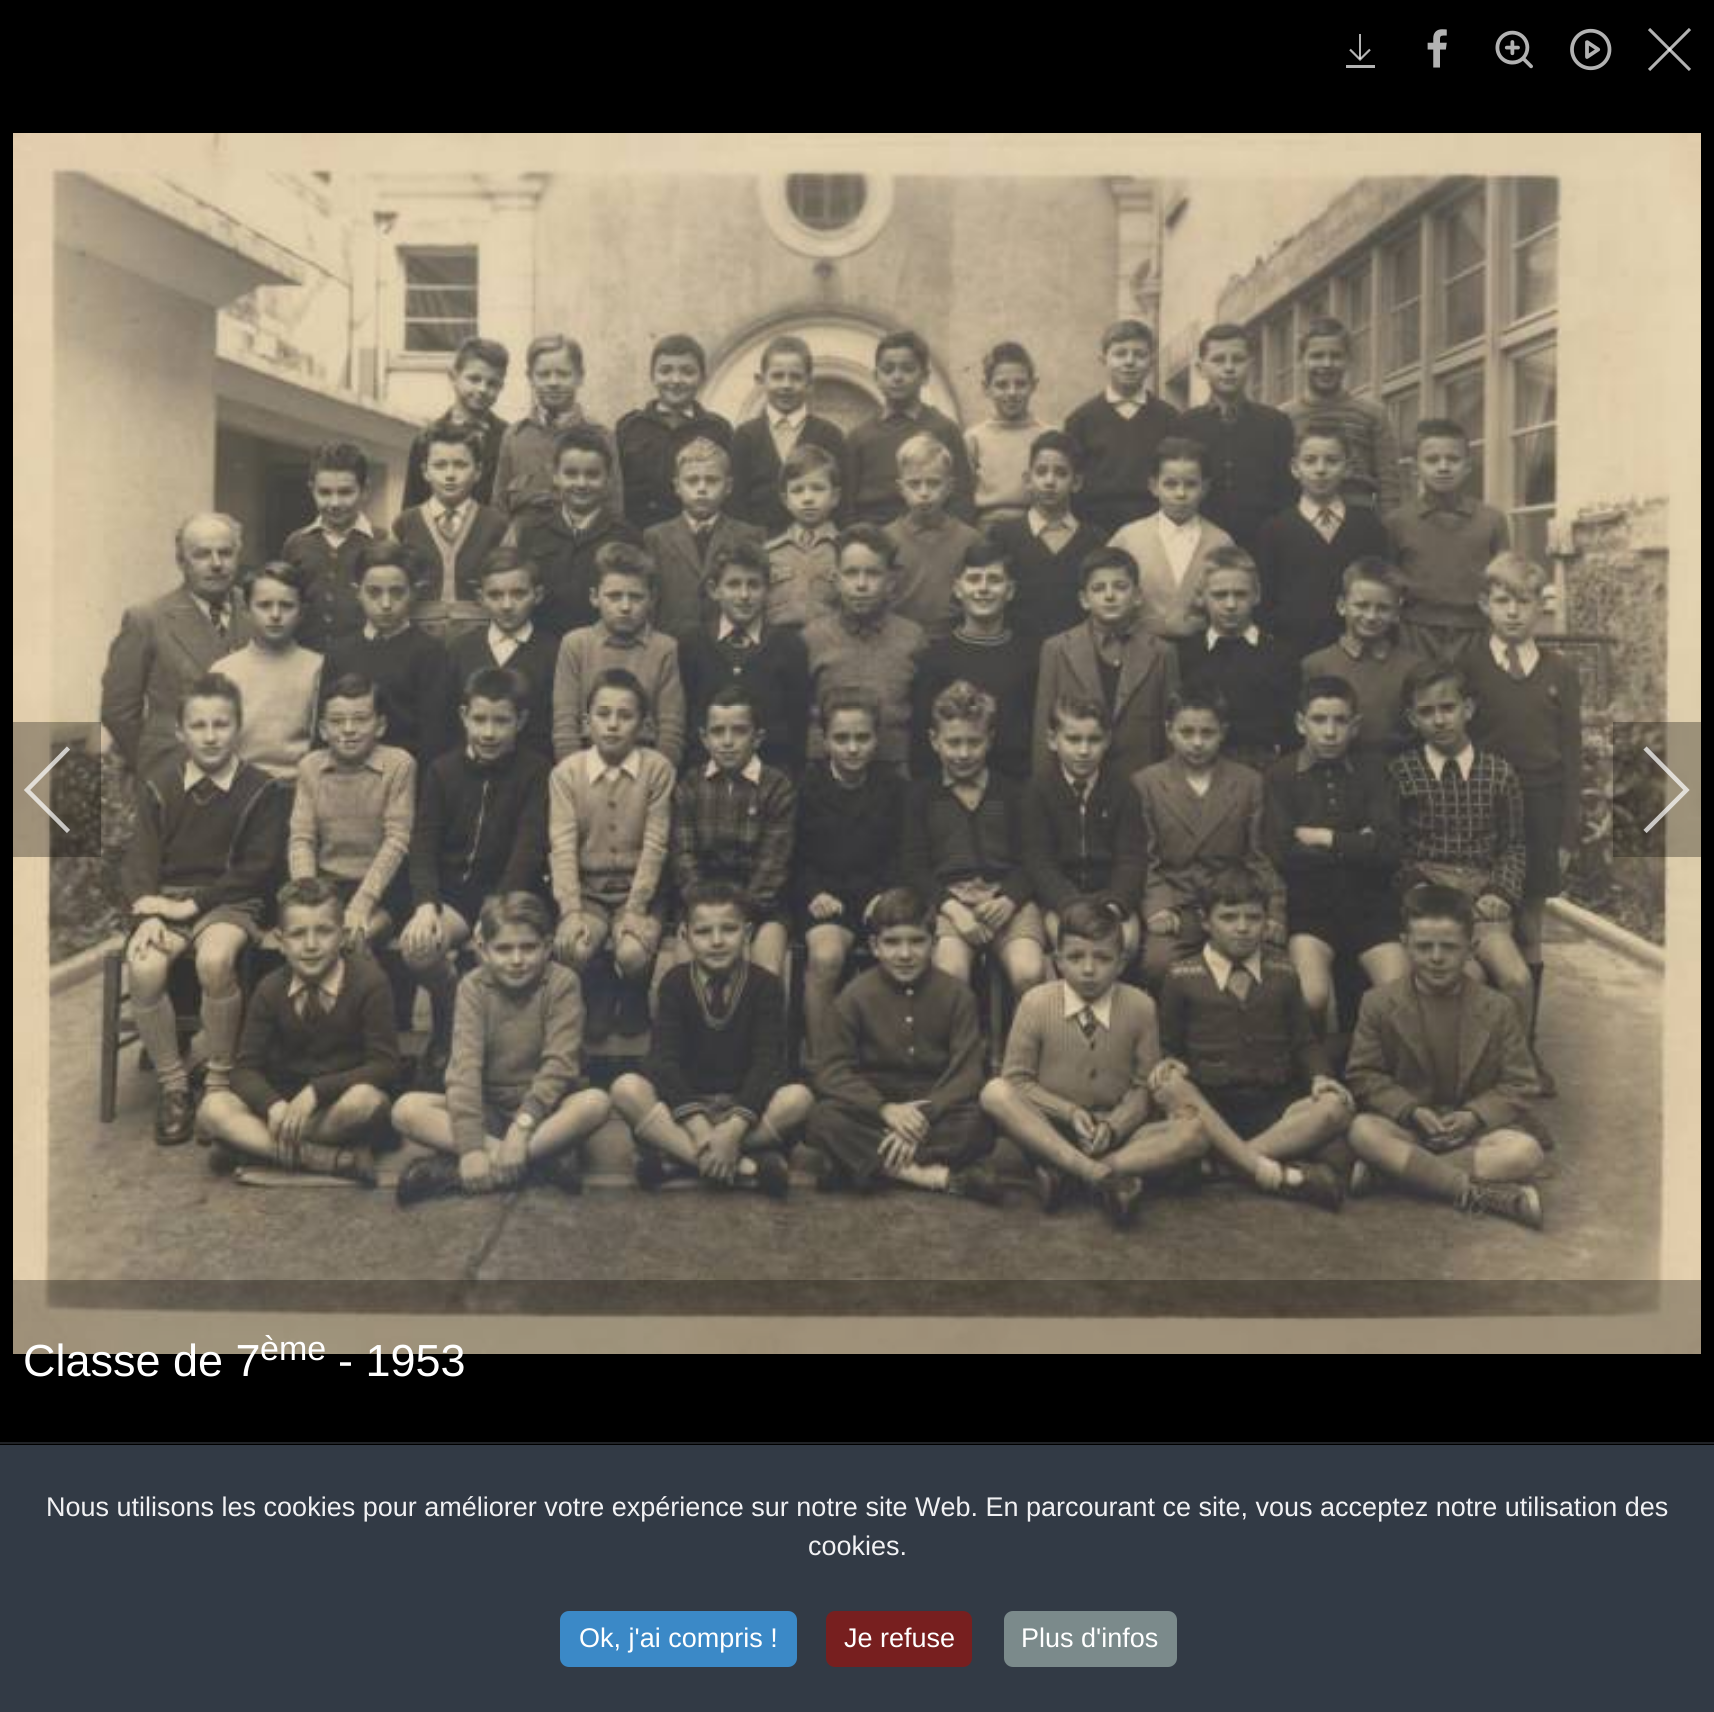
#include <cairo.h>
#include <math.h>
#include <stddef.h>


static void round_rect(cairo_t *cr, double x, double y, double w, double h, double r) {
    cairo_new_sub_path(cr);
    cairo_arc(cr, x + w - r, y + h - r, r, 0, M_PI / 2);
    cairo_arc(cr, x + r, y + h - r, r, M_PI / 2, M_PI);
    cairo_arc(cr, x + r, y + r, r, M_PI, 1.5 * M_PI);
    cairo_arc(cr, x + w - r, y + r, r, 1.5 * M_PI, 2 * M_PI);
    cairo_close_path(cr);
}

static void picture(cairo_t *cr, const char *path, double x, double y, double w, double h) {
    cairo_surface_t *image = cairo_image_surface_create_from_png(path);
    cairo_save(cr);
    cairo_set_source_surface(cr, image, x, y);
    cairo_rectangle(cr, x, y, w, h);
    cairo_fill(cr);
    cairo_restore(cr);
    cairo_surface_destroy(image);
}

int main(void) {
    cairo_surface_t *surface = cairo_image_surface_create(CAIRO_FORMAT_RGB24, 1714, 1712);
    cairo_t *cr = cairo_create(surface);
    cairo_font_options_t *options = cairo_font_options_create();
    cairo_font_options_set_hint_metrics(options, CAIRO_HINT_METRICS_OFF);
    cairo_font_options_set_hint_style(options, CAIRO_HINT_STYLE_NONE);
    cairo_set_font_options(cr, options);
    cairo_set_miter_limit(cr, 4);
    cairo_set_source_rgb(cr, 0, 0, 0);
    cairo_paint(cr);
    cairo_new_path(cr);
    cairo_move_to(cr, 1370, 49.5);
    cairo_line_to(cr, 1360, 59.5);
    cairo_line_to(cr, 1350, 49.5);
    cairo_set_source_rgb(cr, 0.702, 0.702, 0.702);
    cairo_set_line_width(cr, 2.2);
    cairo_stroke(cr);
    cairo_set_source_rgba(cr, 1, 1, 1, 0.7);
    cairo_rectangle(cr, 1359, 34, 2, 25);
    cairo_fill(cr);
    cairo_set_source_rgb(cr, 0.702, 0.702, 0.702);
    cairo_rectangle(cr, 1346, 65, 29, 3);
    cairo_fill(cr);
    picture(cr, "img1.png", 1427, 29, 20, 39);
    picture(cr, "img2.png", 1495, 30, 38, 39);
    picture(cr, "img3.png", 1570, 28, 42, 43);
    cairo_new_path(cr);
    cairo_move_to(cr, 1649, 29);
    cairo_line_to(cr, 1690, 70);
    cairo_set_line_width(cr, 3.1);
    cairo_stroke(cr);
    cairo_new_path(cr);
    cairo_move_to(cr, 1690, 29);
    cairo_line_to(cr, 1649, 70);
    cairo_set_source_rgba(cr, 1, 1, 1, 0.7);
    cairo_stroke(cr);
    picture(cr, "img4.png", 13, 133, 1688, 1221);
    cairo_set_source_rgba(cr, 0, 0, 0, 0.3);
    cairo_rectangle(cr, 13, 722, 88, 135);
    cairo_fill(cr);
    cairo_new_path(cr);
    cairo_move_to(cr, 68.5, 748);
    cairo_line_to(cr, 27, 790);
    cairo_line_to(cr, 68.5, 831.5);
    cairo_set_source_rgba(cr, 1, 1, 1, 0.7);
    cairo_set_line_width(cr, 4.5);
    cairo_stroke(cr);
    cairo_set_source_rgba(cr, 0, 0, 0, 0.3);
    cairo_rectangle(cr, 1613, 722, 88, 135);
    cairo_fill(cr);
    cairo_new_path(cr);
    cairo_move_to(cr, 1645, 831.5);
    cairo_line_to(cr, 1686.5, 790);
    cairo_line_to(cr, 1645, 748);
    cairo_set_source_rgba(cr, 1, 1, 1, 0.7);
    cairo_stroke(cr);
    cairo_set_source_rgba(cr, 0, 0, 0, 0.3);
    cairo_rectangle(cr, 13, 1280, 1688, 74);
    cairo_fill(cr);
    cairo_select_font_face(cr, "Liberation Sans", CAIRO_FONT_SLANT_NORMAL, CAIRO_FONT_WEIGHT_NORMAL);
    cairo_set_font_size(cr, 45);
    cairo_set_source_rgb(cr, 1, 1, 1);
    cairo_move_to(cr, 23, 1376);
    cairo_show_text(cr, "Classe de 7");
    cairo_set_font_size(cr, 34);
    cairo_move_to(cr, 260, 1360);
    cairo_show_text(cr, "ème");
    cairo_set_font_size(cr, 45);
    cairo_move_to(cr, 338, 1376);
    cairo_show_text(cr, "- 1953");
    cairo_set_source_rgb(cr, 0.196, 0.227, 0.271);
    cairo_rectangle(cr, 0, 1445, 1714, 267);
    cairo_fill(cr);
    cairo_set_source_rgb(cr, 0.125, 0.133, 0.149);
    cairo_rectangle(cr, 0, 1442, 1714, 2);
    cairo_fill(cr);
    cairo_set_font_size(cr, 27);
    cairo_set_source_rgb(cr, 0.945, 0.945, 0.953);
    cairo_move_to(cr, 46, 1516);
    cairo_show_text(cr, "Nous utilisons les cookies pour améliorer votre expérience sur notre site Web. En parcourant ce site, vous acceptez notre utilisation des");
    cairo_move_to(cr, 808, 1555);
    cairo_show_text(cr, "cookies.");
    cairo_set_source_rgb(cr, 0.231, 0.537, 0.78);
    round_rect(cr, 560, 1611, 237, 56, 9);
    cairo_fill(cr);
    cairo_set_source_rgb(cr, 1, 1, 1);
    cairo_move_to(cr, 579, 1647);
    cairo_show_text(cr, "Ok, j'ai compris !");
    cairo_set_source_rgb(cr, 0.467, 0.122, 0.122);
    round_rect(cr, 826, 1611, 146, 56, 9);
    cairo_fill(cr);
    cairo_set_source_rgb(cr, 1, 1, 1);
    cairo_move_to(cr, 844, 1647);
    cairo_show_text(cr, "Je refuse");
    cairo_set_source_rgb(cr, 0.482, 0.541, 0.545);
    round_rect(cr, 1004, 1611, 173, 56, 9);
    cairo_fill(cr);
    cairo_set_source_rgb(cr, 1, 1, 1);
    cairo_move_to(cr, 1021, 1647);
    cairo_show_text(cr, "Plus d'infos");
    cairo_surface_write_to_png(surface, "page.png");
    cairo_font_options_destroy(options);
    cairo_destroy(cr);
    cairo_surface_destroy(surface);
    return 0;
}
